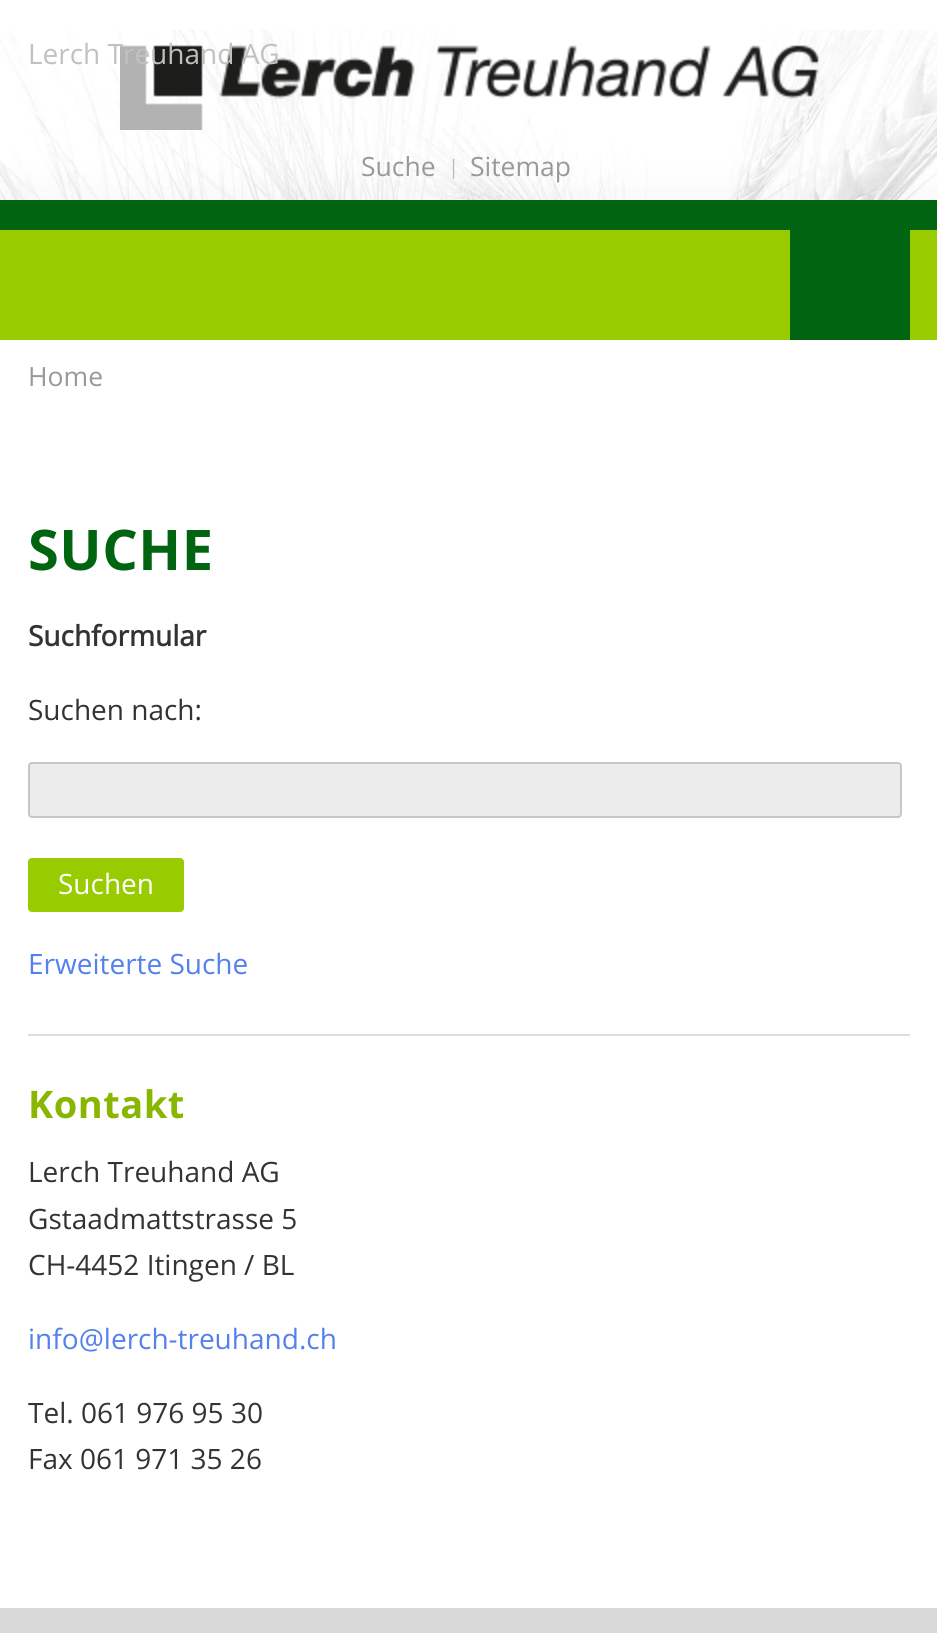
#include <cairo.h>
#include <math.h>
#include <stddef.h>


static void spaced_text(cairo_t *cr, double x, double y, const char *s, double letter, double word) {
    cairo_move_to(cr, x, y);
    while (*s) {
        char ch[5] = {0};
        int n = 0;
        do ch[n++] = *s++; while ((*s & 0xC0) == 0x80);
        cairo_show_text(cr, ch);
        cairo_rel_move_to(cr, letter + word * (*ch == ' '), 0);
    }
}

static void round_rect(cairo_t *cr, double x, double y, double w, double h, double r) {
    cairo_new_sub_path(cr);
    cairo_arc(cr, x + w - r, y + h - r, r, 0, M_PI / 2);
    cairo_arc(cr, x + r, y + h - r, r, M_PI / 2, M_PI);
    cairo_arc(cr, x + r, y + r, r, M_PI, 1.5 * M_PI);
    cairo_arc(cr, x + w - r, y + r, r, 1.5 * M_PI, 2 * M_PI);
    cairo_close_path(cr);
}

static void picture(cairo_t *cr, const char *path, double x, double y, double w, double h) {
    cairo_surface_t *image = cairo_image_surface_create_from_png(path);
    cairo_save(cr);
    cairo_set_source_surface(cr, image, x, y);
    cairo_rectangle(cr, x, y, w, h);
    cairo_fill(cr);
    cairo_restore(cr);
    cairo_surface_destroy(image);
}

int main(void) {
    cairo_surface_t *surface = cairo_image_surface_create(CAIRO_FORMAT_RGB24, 937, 1633);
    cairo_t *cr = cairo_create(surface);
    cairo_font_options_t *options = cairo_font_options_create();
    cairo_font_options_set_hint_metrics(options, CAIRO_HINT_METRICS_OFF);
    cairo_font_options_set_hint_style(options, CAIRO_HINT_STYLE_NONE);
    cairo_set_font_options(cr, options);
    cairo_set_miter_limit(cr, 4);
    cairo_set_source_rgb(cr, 1, 1, 1);
    cairo_paint(cr);
    picture(cr, "img1.png", 0, 30, 937, 170);
    picture(cr, "img2.png", 120, 45, 699, 85);
    cairo_select_font_face(cr, "Open Sans", CAIRO_FONT_SLANT_NORMAL, CAIRO_FONT_WEIGHT_NORMAL);
    cairo_set_font_size(cr, 28);
    cairo_set_source_rgb(cr, 0.757, 0.757, 0.753);
    cairo_move_to(cr, 28, 64);
    cairo_show_text(cr, "Lerch Treuhand AG");
    cairo_set_font_size(cr, 26.5);
    cairo_set_source_rgb(cr, 0.6, 0.6, 0.6);
    cairo_move_to(cr, 361, 176);
    cairo_show_text(cr, "Suche");
    cairo_set_font_size(cr, 20);
    cairo_set_source_rgb(cr, 0.733, 0.733, 0.733);
    cairo_move_to(cr, 448, 174);
    cairo_show_text(cr, "|");
    cairo_set_font_size(cr, 26.5);
    cairo_set_source_rgb(cr, 0.6, 0.6, 0.6);
    cairo_move_to(cr, 470, 176);
    cairo_show_text(cr, "Sitemap");
    cairo_set_source_rgb(cr, 0.6, 0.8, 0);
    cairo_rectangle(cr, 0, 230, 937, 110);
    cairo_fill(cr);
    cairo_set_source_rgb(cr, 0, 0.392, 0.067);
    cairo_rectangle(cr, 0, 200, 937, 30);
    cairo_fill(cr);
    cairo_rectangle(cr, 790, 230, 120, 110);
    cairo_fill(cr);
    cairo_set_source_rgb(cr, 0.6, 0.6, 0.6);
    cairo_move_to(cr, 28, 386);
    cairo_show_text(cr, "Home");
    cairo_select_font_face(cr, "Open Sans", CAIRO_FONT_SLANT_NORMAL, CAIRO_FONT_WEIGHT_BOLD);
    cairo_set_font_size(cr, 56);
    cairo_set_source_rgb(cr, 0, 0.392, 0.067);
    spaced_text(cr, 28, 570, "SUCHE", 0.5, 0);
    cairo_set_source_rgb(cr, 0.871, 0.871, 0.871);
    cairo_rectangle(cr, 28, 1034, 882, 2);
    cairo_fill(cr);
    cairo_select_font_face(cr, "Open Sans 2", CAIRO_FONT_SLANT_NORMAL, CAIRO_FONT_WEIGHT_BOLD);
    cairo_set_font_size(cr, 28);
    cairo_set_source_rgb(cr, 0.2, 0.2, 0.2);
    cairo_move_to(cr, 28, 646);
    cairo_show_text(cr, "Suchformular");
    cairo_select_font_face(cr, "Open Sans", CAIRO_FONT_SLANT_NORMAL, CAIRO_FONT_WEIGHT_NORMAL);
    cairo_move_to(cr, 28, 720);
    cairo_show_text(cr, "Suchen nach:");
    cairo_set_source_rgb(cr, 0.922, 0.922, 0.922);
    round_rect(cr, 28, 762, 874, 56, 4);
    cairo_fill(cr);
    round_rect(cr, 29, 763, 872, 54, 3);
    cairo_set_source_rgba(cr, 0.196, 0.196, 0.196, 0.2);
    cairo_stroke(cr);
    cairo_set_source_rgb(cr, 0.6, 0.8, 0);
    round_rect(cr, 28, 858, 156, 54, 4);
    cairo_fill(cr);
    cairo_set_source_rgb(cr, 1, 1, 1);
    cairo_move_to(cr, 58, 894);
    cairo_show_text(cr, "Suchen");
    cairo_set_source_rgb(cr, 0.329, 0.506, 0.929);
    cairo_move_to(cr, 28, 974);
    cairo_show_text(cr, "Erweiterte Suche");
    cairo_select_font_face(cr, "Open Sans", CAIRO_FONT_SLANT_NORMAL, CAIRO_FONT_WEIGHT_BOLD);
    cairo_set_font_size(cr, 38);
    cairo_set_source_rgb(cr, 0.537, 0.714, 0.004);
    spaced_text(cr, 28, 1118, "Kontakt", 0.5, 0);
    cairo_select_font_face(cr, "Open Sans", CAIRO_FONT_SLANT_NORMAL, CAIRO_FONT_WEIGHT_NORMAL);
    cairo_set_font_size(cr, 28);
    cairo_set_source_rgb(cr, 0.2, 0.2, 0.2);
    cairo_move_to(cr, 28, 1182);
    cairo_show_text(cr, "Lerch Treuhand AG");
    cairo_move_to(cr, 28, 1229);
    cairo_show_text(cr, "Gstaadmattstrasse 5");
    cairo_move_to(cr, 28, 1275);
    cairo_show_text(cr, "CH-4452 Itingen / BL");
    cairo_set_source_rgb(cr, 0.329, 0.506, 0.929);
    cairo_move_to(cr, 28, 1349);
    cairo_show_text(cr, "info@lerch-treuhand.ch");
    cairo_set_source_rgb(cr, 0.2, 0.2, 0.2);
    cairo_move_to(cr, 28, 1423);
    cairo_show_text(cr, "Tel. 061 976 95 30");
    cairo_move_to(cr, 28, 1469);
    cairo_show_text(cr, "Fax 061 971 35 26");
    cairo_set_source_rgb(cr, 0.851, 0.851, 0.851);
    cairo_rectangle(cr, 0, 1608, 937, 25);
    cairo_fill(cr);
    cairo_surface_write_to_png(surface, "page.png");
    cairo_font_options_destroy(options);
    cairo_destroy(cr);
    cairo_surface_destroy(surface);
    return 0;
}
